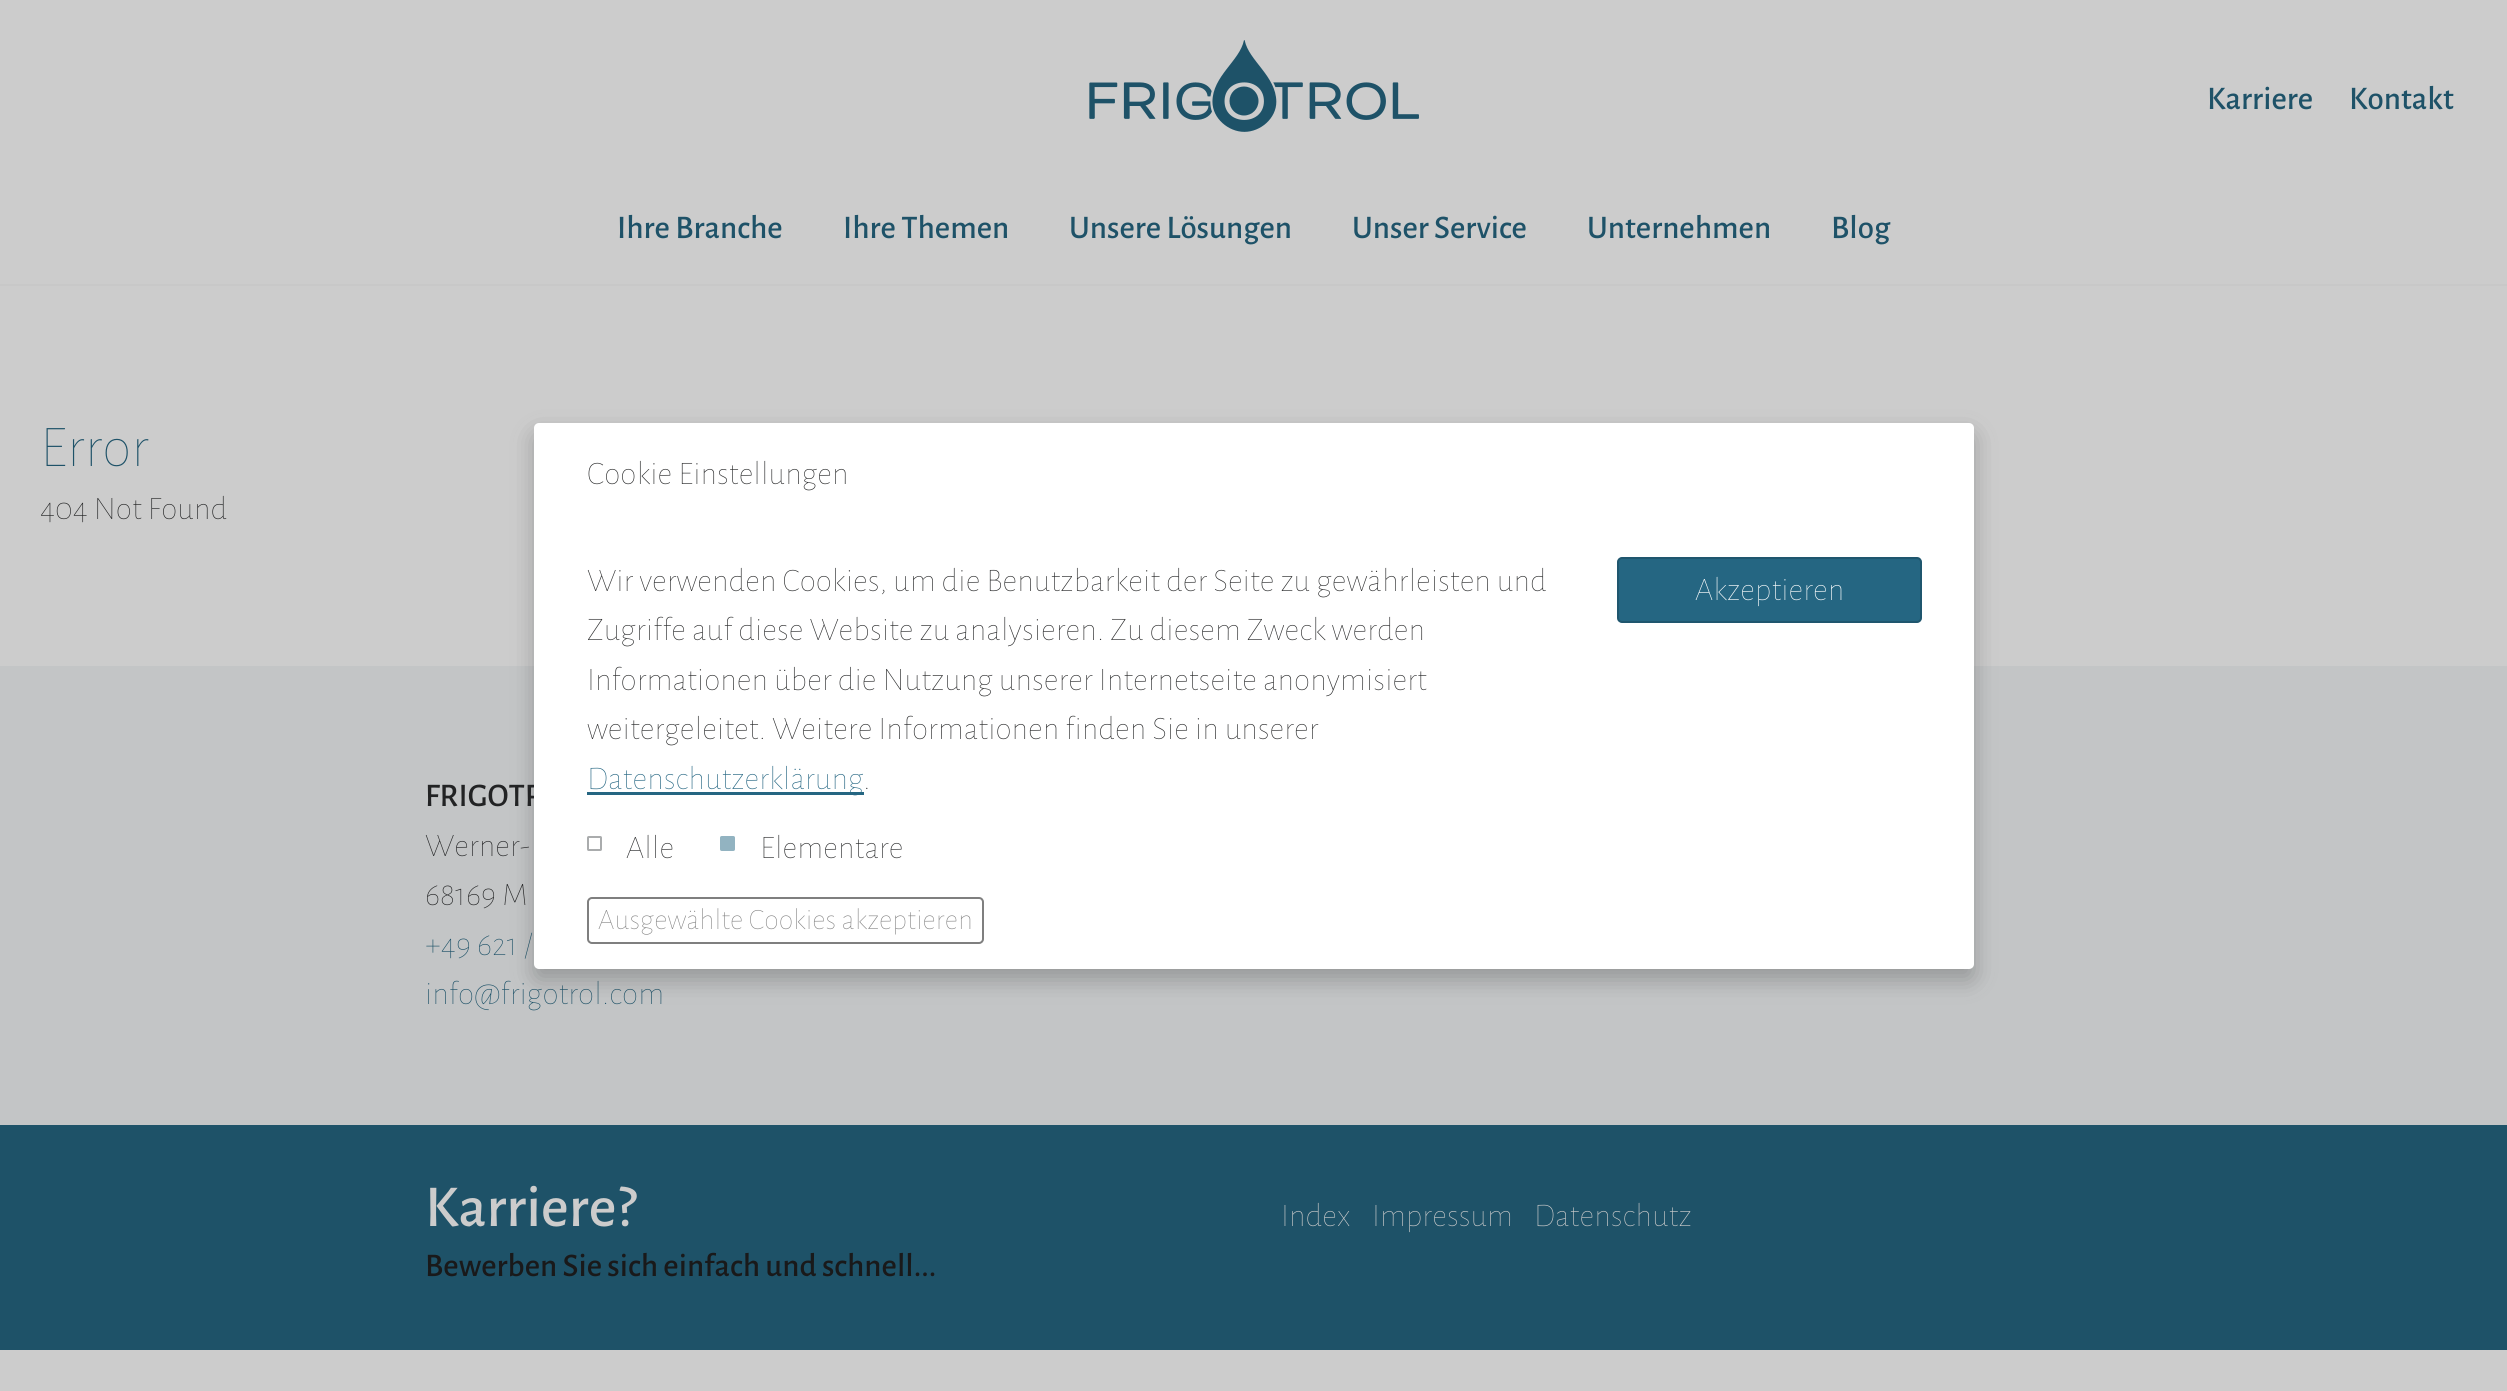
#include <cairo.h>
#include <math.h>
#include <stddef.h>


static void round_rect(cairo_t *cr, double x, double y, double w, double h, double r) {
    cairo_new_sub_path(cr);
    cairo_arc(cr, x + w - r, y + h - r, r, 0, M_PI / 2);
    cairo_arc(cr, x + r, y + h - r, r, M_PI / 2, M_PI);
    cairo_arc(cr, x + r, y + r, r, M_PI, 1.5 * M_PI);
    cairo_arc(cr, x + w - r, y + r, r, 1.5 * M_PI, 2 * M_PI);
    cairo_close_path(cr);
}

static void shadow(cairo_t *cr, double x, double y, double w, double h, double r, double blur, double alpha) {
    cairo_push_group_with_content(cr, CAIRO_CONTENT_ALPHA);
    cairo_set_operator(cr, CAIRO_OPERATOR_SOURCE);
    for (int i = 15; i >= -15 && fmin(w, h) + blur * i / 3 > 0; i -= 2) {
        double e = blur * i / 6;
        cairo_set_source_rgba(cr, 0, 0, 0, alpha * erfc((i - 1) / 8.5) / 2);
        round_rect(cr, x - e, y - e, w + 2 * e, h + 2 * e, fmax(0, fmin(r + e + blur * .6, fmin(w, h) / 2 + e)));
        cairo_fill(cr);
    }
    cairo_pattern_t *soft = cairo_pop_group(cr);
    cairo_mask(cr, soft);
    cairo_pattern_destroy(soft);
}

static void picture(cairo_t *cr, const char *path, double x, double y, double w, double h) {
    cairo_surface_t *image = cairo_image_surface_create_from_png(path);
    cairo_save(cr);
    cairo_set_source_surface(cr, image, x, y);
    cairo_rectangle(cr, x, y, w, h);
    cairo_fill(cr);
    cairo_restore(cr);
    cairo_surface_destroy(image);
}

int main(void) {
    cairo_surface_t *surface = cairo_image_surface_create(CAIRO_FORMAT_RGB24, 2507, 1391);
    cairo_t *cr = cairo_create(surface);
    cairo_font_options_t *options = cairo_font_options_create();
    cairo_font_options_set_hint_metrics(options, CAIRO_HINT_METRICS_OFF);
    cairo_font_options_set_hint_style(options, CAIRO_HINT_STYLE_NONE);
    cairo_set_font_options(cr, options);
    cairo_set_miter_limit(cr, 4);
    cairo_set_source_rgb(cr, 0.8, 0.8, 0.8);
    cairo_paint(cr);
    picture(cr, "img1.png", 1089, 40, 330, 92);
    cairo_select_font_face(cr, "Alegreya Sans Medium", CAIRO_FONT_SLANT_NORMAL, CAIRO_FONT_WEIGHT_NORMAL);
    cairo_set_font_size(cr, 33);
    cairo_set_source_rgb(cr, 0.118, 0.322, 0.408);
    cairo_move_to(cr, 2207, 109);
    cairo_show_text(cr, "Karriere");
    cairo_move_to(cr, 2349, 109);
    cairo_show_text(cr, "Kontakt");
    cairo_set_source_rgb(cr, 0.784, 0.784, 0.784);
    cairo_rectangle(cr, 0, 284, 2507, 2);
    cairo_fill(cr);
    cairo_set_source_rgb(cr, 0.118, 0.322, 0.408);
    cairo_move_to(cr, 617, 238);
    cairo_show_text(cr, "Ihre Branche");
    cairo_move_to(cr, 843, 238);
    cairo_show_text(cr, "Ihre Themen");
    cairo_move_to(cr, 1069, 238);
    cairo_show_text(cr, "Unsere Lösungen");
    cairo_move_to(cr, 1352, 238);
    cairo_show_text(cr, "Unser Service");
    cairo_move_to(cr, 1587, 238);
    cairo_show_text(cr, "Unternehmen");
    cairo_move_to(cr, 1831, 238);
    cairo_show_text(cr, "Blog");
    cairo_select_font_face(cr, "Alegreya Sans ExtraLight", CAIRO_FONT_SLANT_NORMAL, CAIRO_FONT_WEIGHT_NORMAL);
    cairo_set_font_size(cr, 59.5);
    cairo_move_to(cr, 40, 466);
    cairo_show_text(cr, "Error");
    cairo_set_font_size(cr, 33);
    cairo_set_source_rgb(cr, 0.133, 0.137, 0.141);
    cairo_move_to(cr, 40, 519);
    cairo_show_text(cr, "404 Not Found");
    cairo_set_source_rgb(cr, 0.765, 0.773, 0.776);
    cairo_rectangle(cr, 0, 666, 2507, 459);
    cairo_fill(cr);
    cairo_select_font_face(cr, "Alegreya Sans Medium", CAIRO_FONT_SLANT_NORMAL, CAIRO_FONT_WEIGHT_NORMAL);
    cairo_set_source_rgb(cr, 0.133, 0.137, 0.141);
    cairo_move_to(cr, 425, 806);
    cairo_show_text(cr, "FRIGOTR");
    cairo_select_font_face(cr, "Alegreya Sans ExtraLight", CAIRO_FONT_SLANT_NORMAL, CAIRO_FONT_WEIGHT_NORMAL);
    cairo_move_to(cr, 425, 856);
    cairo_show_text(cr, "Werner-");
    cairo_move_to(cr, 425, 905);
    cairo_show_text(cr, "68169 M");
    cairo_set_source_rgb(cr, 0.118, 0.322, 0.408);
    cairo_move_to(cr, 425, 955);
    cairo_show_text(cr, "+49 621 /");
    cairo_move_to(cr, 425, 1004);
    cairo_show_text(cr, "info@frigotrol.com");
    cairo_rectangle(cr, 0, 1125, 2507, 225);
    cairo_fill(cr);
    cairo_select_font_face(cr, "Alegreya Sans Medium", CAIRO_FONT_SLANT_NORMAL, CAIRO_FONT_WEIGHT_NORMAL);
    cairo_set_font_size(cr, 59.5);
    cairo_set_source_rgb(cr, 0.8, 0.8, 0.8);
    cairo_move_to(cr, 425, 1226);
    cairo_show_text(cr, "Karriere?");
    cairo_set_font_size(cr, 33);
    cairo_set_source_rgb(cr, 0.098, 0.098, 0.102);
    cairo_move_to(cr, 425, 1276);
    cairo_show_text(cr, "Bewerben Sie sich einfach und schnell...");
    cairo_select_font_face(cr, "Alegreya Sans ExtraLight", CAIRO_FONT_SLANT_NORMAL, CAIRO_FONT_WEIGHT_NORMAL);
    cairo_set_source_rgb(cr, 0.8, 0.8, 0.8);
    cairo_move_to(cr, 1281, 1226);
    cairo_show_text(cr, "Index");
    cairo_move_to(cr, 1372, 1226);
    cairo_show_text(cr, "Impressum");
    cairo_move_to(cr, 1534, 1226);
    cairo_show_text(cr, "Datenschutz");
    cairo_set_source_rgb(cr, 0.169, 0.173, 0.176);
    shadow(cr, 534, 434, 1440, 546, 5, 11.5, 0.3);
    cairo_set_source_rgb(cr, 1, 1, 1);
    round_rect(cr, 534, 423, 1440, 546, 5);
    cairo_fill(cr);
    cairo_set_source_rgb(cr, 0.169, 0.173, 0.176);
    cairo_move_to(cr, 587, 484);
    cairo_show_text(cr, "Cookie Einstellungen");
    cairo_move_to(cr, 587, 591);
    cairo_show_text(cr, "Wir verwenden Cookies, um die Benutzbarkeit der Seite zu gewährleisten und");
    cairo_move_to(cr, 587, 640);
    cairo_show_text(cr, "Zugriffe auf diese Website zu analysieren. Zu diesem Zweck werden");
    cairo_move_to(cr, 587, 690);
    cairo_show_text(cr, "Informationen über die Nutzung unserer Internetseite anonymisiert");
    cairo_move_to(cr, 587, 739);
    cairo_show_text(cr, "weitergeleitet. Weitere Informationen finden Sie in unserer");
    cairo_set_source_rgb(cr, 0.145, 0.4, 0.51);
    cairo_rectangle(cr, 587, 792, 277, 3);
    cairo_fill(cr);
    cairo_move_to(cr, 587, 789);
    cairo_show_text(cr, "Datenschutzerklärung");
    cairo_set_source_rgb(cr, 0.169, 0.173, 0.176);
    cairo_move_to(cr, 863, 789);
    cairo_show_text(cr, ".");
    cairo_set_source_rgb(cr, 0.145, 0.4, 0.51);
    round_rect(cr, 1618, 558, 303, 64, 4);
    cairo_fill_preserve(cr);
    cairo_set_source_rgb(cr, 0.122, 0.337, 0.431);
    cairo_stroke(cr);
    cairo_set_source_rgb(cr, 1, 1, 1);
    cairo_move_to(cr, 1695, 600);
    cairo_show_text(cr, "Akzeptieren");
    round_rect(cr, 588, 837, 13, 13, 0.5);
    cairo_set_source_rgb(cr, 0.667, 0.675, 0.678);
    cairo_stroke(cr);
    cairo_set_source_rgb(cr, 0.169, 0.173, 0.176);
    cairo_move_to(cr, 626, 858);
    cairo_show_text(cr, "Alle");
    cairo_set_source_rgb(cr, 0.573, 0.702, 0.757);
    round_rect(cr, 721, 837, 13, 13, 0.5);
    cairo_fill_preserve(cr);
    cairo_stroke(cr);
    cairo_set_source_rgb(cr, 0.169, 0.173, 0.176);
    cairo_move_to(cr, 760, 858);
    cairo_show_text(cr, "Elementare");
    round_rect(cr, 588, 898, 395, 45, 4);
    cairo_set_source_rgb(cr, 0.498, 0.498, 0.498);
    cairo_stroke(cr);
    cairo_set_font_size(cr, 29.75);
    cairo_move_to(cr, 598, 929);
    cairo_show_text(cr, "Ausgewählte Cookies akzeptieren");
    cairo_surface_write_to_png(surface, "page.png");
    cairo_font_options_destroy(options);
    cairo_destroy(cr);
    cairo_surface_destroy(surface);
    return 0;
}
